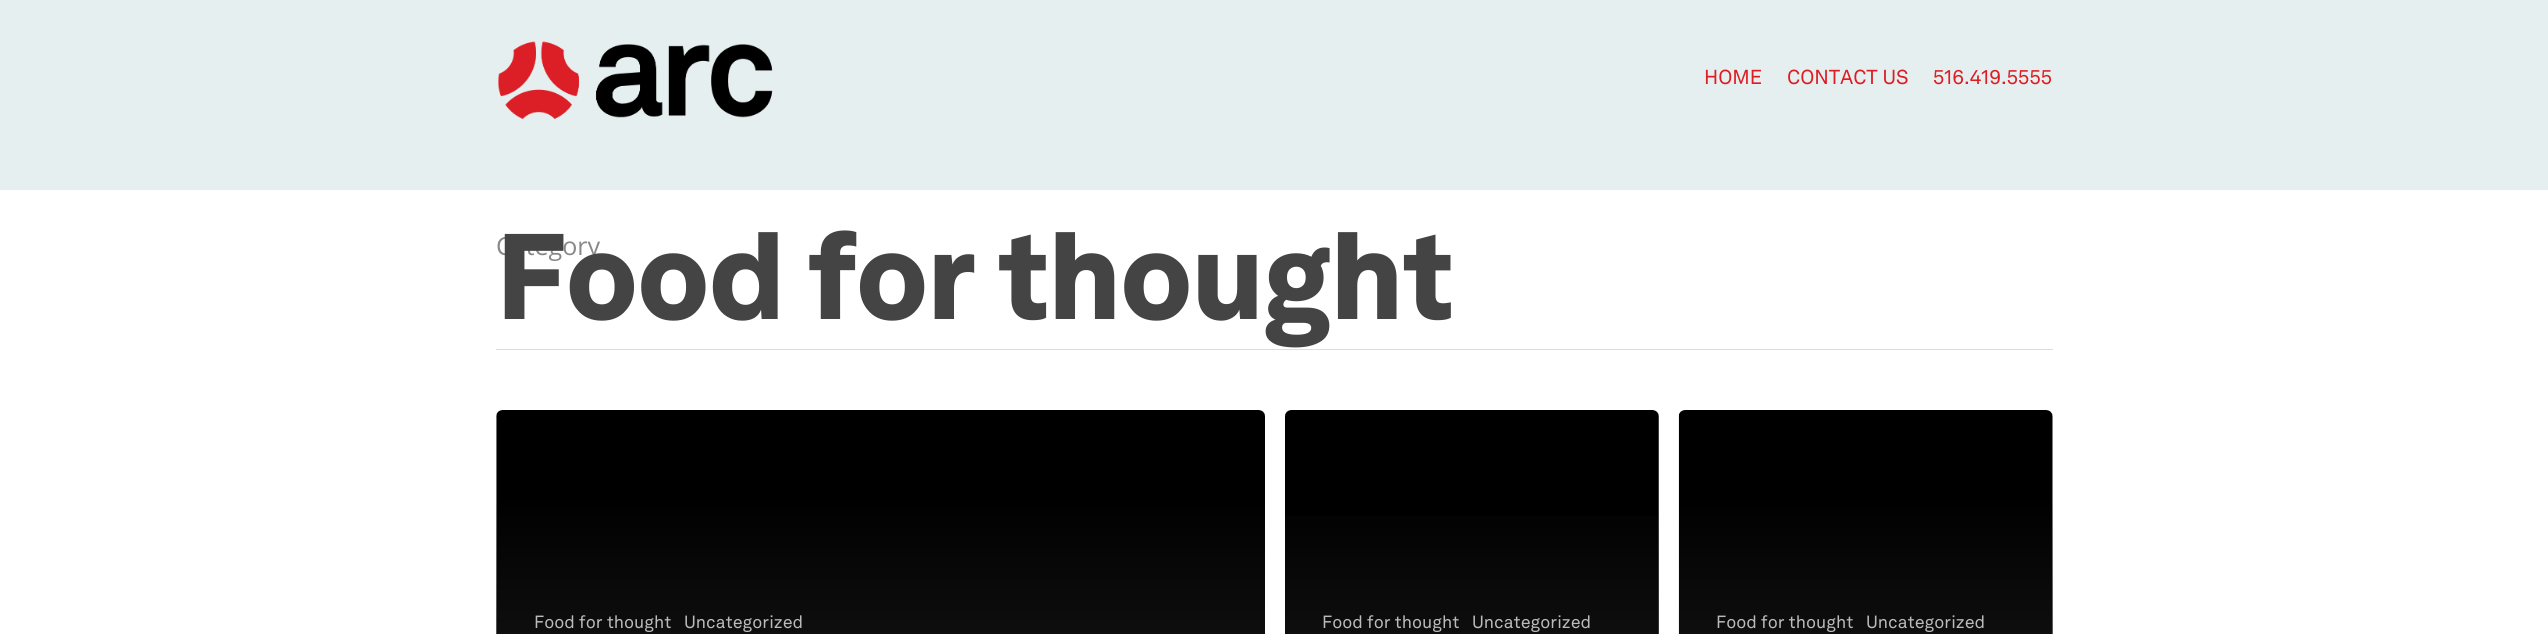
#include <cairo.h>
#include <math.h>
#include <stddef.h>


static void spaced_text(cairo_t *cr, double x, double y, const char *s, double letter, double word) {
    cairo_move_to(cr, x, y);
    while (*s) {
        char ch[5] = {0};
        int n = 0;
        do ch[n++] = *s++; while ((*s & 0xC0) == 0x80);
        cairo_show_text(cr, ch);
        cairo_rel_move_to(cr, letter + word * (*ch == ' '), 0);
    }
}

static void picture(cairo_t *cr, const char *path, double x, double y, double w, double h) {
    cairo_surface_t *image = cairo_image_surface_create_from_png(path);
    cairo_save(cr);
    cairo_set_source_surface(cr, image, x, y);
    cairo_rectangle(cr, x, y, w, h);
    cairo_fill(cr);
    cairo_restore(cr);
    cairo_surface_destroy(image);
}

int main(void) {
    cairo_surface_t *surface = cairo_image_surface_create(CAIRO_FORMAT_RGB24, 2548, 634);
    cairo_t *cr = cairo_create(surface);
    cairo_font_options_t *options = cairo_font_options_create();
    cairo_font_options_set_hint_metrics(options, CAIRO_HINT_METRICS_OFF);
    cairo_font_options_set_hint_style(options, CAIRO_HINT_STYLE_NONE);
    cairo_set_font_options(cr, options);
    cairo_set_miter_limit(cr, 4);
    cairo_pattern_t *gradient;
    cairo_set_source_rgb(cr, 1, 1, 1);
    cairo_paint(cr);
    cairo_set_source_rgb(cr, 0.902, 0.937, 0.937);
    cairo_rectangle(cr, 0, 0, 2548, 190);
    cairo_fill(cr);
    picture(cr, "img1.png", 498, 41, 275, 78);
    cairo_select_font_face(cr, "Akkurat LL", CAIRO_FONT_SLANT_NORMAL, CAIRO_FONT_WEIGHT_NORMAL);
    cairo_set_font_size(cr, 20);
    cairo_set_source_rgb(cr, 0.867, 0.11, 0.141);
    cairo_move_to(cr, 1704, 84);
    cairo_show_text(cr, "HOME");
    cairo_move_to(cr, 1787, 84);
    cairo_show_text(cr, "CONTACT US");
    cairo_move_to(cr, 1933, 84);
    cairo_show_text(cr, "516.419.5555");
    cairo_set_source_rgb(cr, 0.867, 0.867, 0.867);
    cairo_rectangle(cr, 496, 349, 1557, 1);
    cairo_fill(cr);
    cairo_select_font_face(cr, "Open Sans", CAIRO_FONT_SLANT_NORMAL, CAIRO_FONT_WEIGHT_NORMAL);
    cairo_set_font_size(cr, 25);
    cairo_set_source_rgb(cr, 0.533, 0.533, 0.533);
    cairo_move_to(cr, 496, 255);
    cairo_show_text(cr, "Category");
    cairo_select_font_face(cr, "Akkurat LL Black", CAIRO_FONT_SLANT_NORMAL, CAIRO_FONT_WEIGHT_NORMAL);
    cairo_set_font_size(cr, 120);
    cairo_set_source_rgb(cr, 0.267, 0.267, 0.267);
    spaced_text(cr, 496, 319, "Food for thought", -1.25, 0);
    picture(cr, "img2.png", 496, 410, 769, 224);
    gradient = cairo_pattern_create_linear(883, 490, 883, 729);
    cairo_pattern_add_color_stop_rgba(gradient, 0, 0.137, 0.137, 0.137, 0);
    cairo_pattern_add_color_stop_rgba(gradient, 1, 0.137, 0.137, 0.137, 0.65);
    cairo_set_source(cr, gradient);
    cairo_pattern_destroy(gradient);
    cairo_rectangle(cr, 496, 502, 769, 132);
    cairo_fill(cr);
    cairo_select_font_face(cr, "Akkurat LL", CAIRO_FONT_SLANT_NORMAL, CAIRO_FONT_WEIGHT_NORMAL);
    cairo_set_font_size(cr, 17.5);
    cairo_set_source_rgb(cr, 0.733, 0.733, 0.733);
    cairo_move_to(cr, 534, 628);
    cairo_show_text(cr, "Food for thought");
    cairo_move_to(cr, 684, 628);
    cairo_show_text(cr, "Uncategorized");
    picture(cr, "img3.png", 1285, 410, 374, 224);
    gradient = cairo_pattern_create_linear(1473, 490, 1473, 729);
    cairo_pattern_add_color_stop_rgba(gradient, 0, 0.137, 0.137, 0.137, 0);
    cairo_pattern_add_color_stop_rgba(gradient, 1, 0.137, 0.137, 0.137, 0.65);
    cairo_set_source(cr, gradient);
    cairo_pattern_destroy(gradient);
    cairo_rectangle(cr, 1285, 516, 374, 118);
    cairo_fill(cr);
    cairo_set_source_rgb(cr, 0.733, 0.733, 0.733);
    cairo_move_to(cr, 1322, 628);
    cairo_show_text(cr, "Food for thought");
    cairo_move_to(cr, 1472, 628);
    cairo_show_text(cr, "Uncategorized");
    picture(cr, "img4.png", 1678, 410, 375, 224);
    gradient = cairo_pattern_create_linear(1866, 490, 1866, 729);
    cairo_pattern_add_color_stop_rgba(gradient, 0, 0.137, 0.137, 0.137, 0);
    cairo_pattern_add_color_stop_rgba(gradient, 1, 0.137, 0.137, 0.137, 0.65);
    cairo_set_source(cr, gradient);
    cairo_pattern_destroy(gradient);
    cairo_rectangle(cr, 1679, 501, 374, 133);
    cairo_fill(cr);
    cairo_set_source_rgb(cr, 0.733, 0.733, 0.733);
    cairo_move_to(cr, 1716, 628);
    cairo_show_text(cr, "Food for thought");
    cairo_move_to(cr, 1866, 628);
    cairo_show_text(cr, "Uncategorized");
    cairo_surface_write_to_png(surface, "page.png");
    cairo_font_options_destroy(options);
    cairo_destroy(cr);
    cairo_surface_destroy(surface);
    return 0;
}
